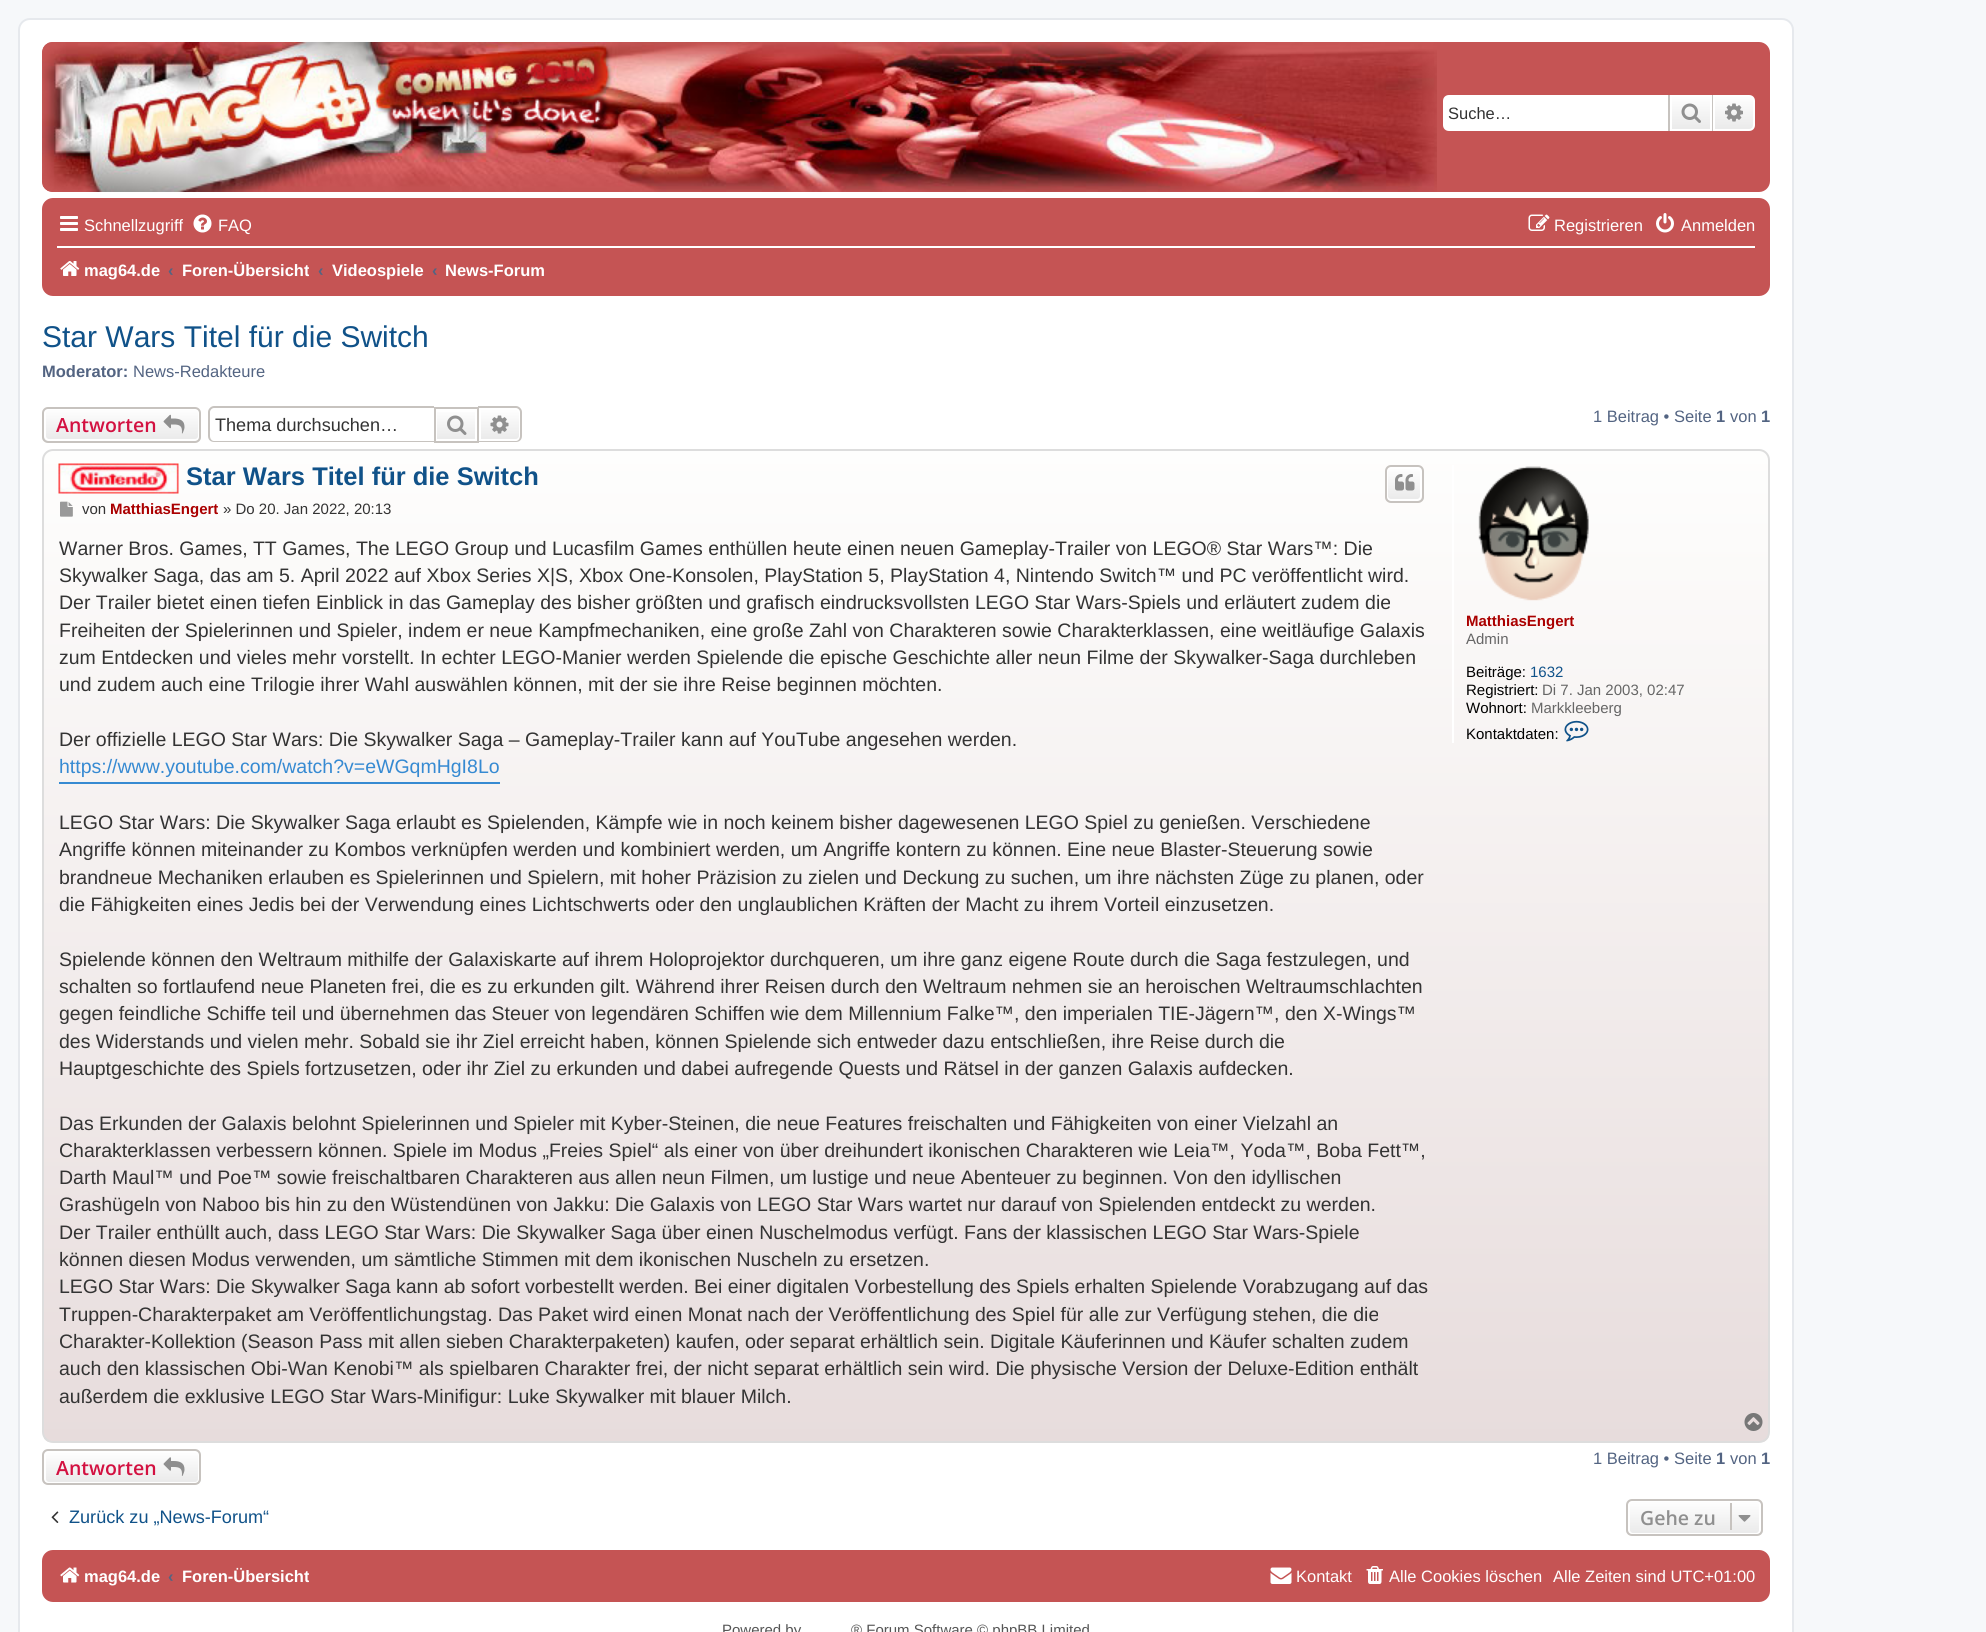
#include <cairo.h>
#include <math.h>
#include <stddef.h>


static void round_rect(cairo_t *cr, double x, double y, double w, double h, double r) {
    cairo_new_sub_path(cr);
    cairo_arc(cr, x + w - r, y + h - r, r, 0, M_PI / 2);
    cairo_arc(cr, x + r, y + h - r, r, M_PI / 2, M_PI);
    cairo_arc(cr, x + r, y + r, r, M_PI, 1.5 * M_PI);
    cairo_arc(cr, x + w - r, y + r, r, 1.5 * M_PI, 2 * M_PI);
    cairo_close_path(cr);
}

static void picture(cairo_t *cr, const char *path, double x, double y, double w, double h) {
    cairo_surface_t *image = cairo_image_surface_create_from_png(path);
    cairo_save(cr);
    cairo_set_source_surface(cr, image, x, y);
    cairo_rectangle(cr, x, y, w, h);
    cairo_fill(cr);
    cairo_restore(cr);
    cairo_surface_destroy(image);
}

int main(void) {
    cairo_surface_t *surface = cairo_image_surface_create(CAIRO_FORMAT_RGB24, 1986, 1632);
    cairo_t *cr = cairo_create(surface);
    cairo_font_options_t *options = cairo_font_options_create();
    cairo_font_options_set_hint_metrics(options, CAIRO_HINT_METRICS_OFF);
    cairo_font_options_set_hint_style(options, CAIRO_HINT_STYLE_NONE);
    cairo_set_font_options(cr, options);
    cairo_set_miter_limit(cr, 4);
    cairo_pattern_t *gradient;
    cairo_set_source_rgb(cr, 0.961, 0.969, 0.98);
    cairo_paint(cr);
    cairo_set_source_rgb(cr, 1, 1, 1);
    round_rect(cr, 19, 19, 1774, 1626, 11);
    cairo_fill_preserve(cr);
    cairo_set_source_rgb(cr, 0.902, 0.914, 0.929);
    cairo_stroke(cr);
    cairo_set_source_rgb(cr, 0.773, 0.329, 0.329);
    round_rect(cr, 42, 42, 1728, 150, 11);
    cairo_fill(cr);
    picture(cr, "img1.png", 42, 42, 1395, 150);
    cairo_set_source_rgb(cr, 1, 1, 1);
    cairo_new_path(cr);
    cairo_move_to(cr, 1449, 95);
    cairo_line_to(cr, 1668, 95);
    cairo_line_to(cr, 1668, 131);
    cairo_line_to(cr, 1449, 131);
    cairo_curve_to(cr, 1445.5, 131, 1443, 128.5, 1443, 125);
    cairo_line_to(cr, 1443, 101);
    cairo_curve_to(cr, 1443, 97.5, 1445.5, 95, 1449, 95);
    cairo_close_path(cr);
    cairo_fill(cr);
    cairo_select_font_face(cr, "Liberation Sans", CAIRO_FONT_SLANT_NORMAL, CAIRO_FONT_WEIGHT_NORMAL);
    cairo_set_font_size(cr, 16.5);
    cairo_set_source_rgb(cr, 0.2, 0.2, 0.2);
    cairo_move_to(cr, 1448, 119);
    cairo_show_text(cr, "Suche…");
    gradient = cairo_pattern_create_linear(1691, 95, 1691, 131);
    cairo_pattern_add_color_stop_rgba(gradient, 0, 1, 1, 1, 1);
    cairo_pattern_add_color_stop_rgba(gradient, 1, 0.914, 0.914, 0.914, 1);
    cairo_set_source(cr, gradient);
    cairo_pattern_destroy(gradient);
    cairo_rectangle(cr, 1672, 97, 38, 32);
    cairo_fill(cr);
    cairo_rectangle(cr, 1671, 96, 40, 34);
    cairo_set_source_rgb(cr, 1, 1, 1);
    cairo_stroke(cr);
    cairo_set_source_rgb(cr, 0.78, 0.765, 0.749);
    cairo_rectangle(cr, 1712, 95, 1, 36);
    cairo_fill(cr);
    cairo_rectangle(cr, 1668, 95, 2, 36);
    cairo_fill(cr);
    picture(cr, "img2.png", 1681, 103, 20, 20);
    gradient = cairo_pattern_create_linear(1734, 95, 1734, 131);
    cairo_pattern_add_color_stop_rgba(gradient, 0, 1, 1, 1, 1);
    cairo_pattern_add_color_stop_rgba(gradient, 1, 0.914, 0.914, 0.914, 1);
    cairo_set_source(cr, gradient);
    cairo_pattern_destroy(gradient);
    cairo_new_path(cr);
    cairo_move_to(cr, 1714, 96);
    cairo_line_to(cr, 1749, 96);
    cairo_curve_to(cr, 1752, 96, 1754, 98, 1754, 101);
    cairo_line_to(cr, 1754, 125);
    cairo_curve_to(cr, 1754, 128, 1752, 130, 1749, 130);
    cairo_line_to(cr, 1714, 130);
    cairo_close_path(cr);
    cairo_fill_preserve(cr);
    cairo_set_source_rgb(cr, 1, 1, 1);
    cairo_stroke(cr);
    picture(cr, "img3.png", 1725, 103, 18, 19);
    cairo_set_source_rgb(cr, 0.773, 0.329, 0.329);
    round_rect(cr, 42, 198, 1728, 98, 11);
    cairo_fill(cr);
    picture(cr, "img4.png", 60, 216, 18, 15);
    cairo_set_source_rgb(cr, 1, 1, 1);
    cairo_move_to(cr, 84, 231);
    cairo_show_text(cr, "Schnellzugriff");
    picture(cr, "img5.png", 193, 214, 19, 19);
    cairo_move_to(cr, 218, 231);
    cairo_show_text(cr, "FAQ");
    picture(cr, "img6.png", 1528, 214, 22, 17);
    cairo_move_to(cr, 1554, 231);
    cairo_show_text(cr, "Registrieren");
    picture(cr, "img7.png", 1656, 213, 18, 20);
    cairo_move_to(cr, 1681, 231);
    cairo_show_text(cr, "Anmelden");
    cairo_rectangle(cr, 57, 246, 1698, 2);
    cairo_fill(cr);
    picture(cr, "img8.png", 60, 261, 20, 15);
    cairo_select_font_face(cr, "Liberation Sans", CAIRO_FONT_SLANT_NORMAL, CAIRO_FONT_WEIGHT_BOLD);
    cairo_move_to(cr, 84, 276);
    cairo_show_text(cr, "mag64.de");
    cairo_set_source_rgb(cr, 0.325, 0.392, 0.51);
    cairo_move_to(cr, 168, 276);
    cairo_show_text(cr, "‹");
    cairo_save(cr);
    cairo_rectangle(cr, 182, 252, 127, 36);
    cairo_clip(cr);
    cairo_set_source_rgb(cr, 1, 1, 1);
    cairo_move_to(cr, 182, 276);
    cairo_show_text(cr, "Foren-Übersicht");
    cairo_restore(cr);
    cairo_move_to(cr, 318, 276);
    cairo_show_text(cr, "‹");
    cairo_set_source_rgb(cr, 1, 1, 1);
    cairo_move_to(cr, 332, 276);
    cairo_show_text(cr, "Videospiele");
    cairo_set_source_rgb(cr, 0.325, 0.392, 0.51);
    cairo_move_to(cr, 432, 276);
    cairo_show_text(cr, "‹");
    cairo_set_source_rgb(cr, 1, 1, 1);
    cairo_move_to(cr, 445, 276);
    cairo_show_text(cr, "News-Forum");
    cairo_select_font_face(cr, "Liberation Sans", CAIRO_FONT_SLANT_NORMAL, CAIRO_FONT_WEIGHT_NORMAL);
    cairo_set_font_size(cr, 30);
    cairo_set_source_rgb(cr, 0.063, 0.322, 0.537);
    cairo_move_to(cr, 42, 347);
    cairo_show_text(cr, "Star Wars Titel für die Switch");
    cairo_select_font_face(cr, "Liberation Sans", CAIRO_FONT_SLANT_NORMAL, CAIRO_FONT_WEIGHT_BOLD);
    cairo_set_font_size(cr, 16.5);
    cairo_set_source_rgb(cr, 0.325, 0.392, 0.51);
    cairo_move_to(cr, 42, 377);
    cairo_show_text(cr, "Moderator:");
    cairo_select_font_face(cr, "Liberation Sans", CAIRO_FONT_SLANT_NORMAL, CAIRO_FONT_WEIGHT_NORMAL);
    cairo_move_to(cr, 133, 377);
    cairo_show_text(cr, "News-Redakteure");
    cairo_save(cr);
    round_rect(cr, 42, 407, 159, 36, 6);
    cairo_clip(cr);
    gradient = cairo_pattern_create_linear(122, 408, 122, 441);
    cairo_pattern_add_color_stop_rgba(gradient, 0, 1, 1, 1, 1);
    cairo_pattern_add_color_stop_rgba(gradient, 1, 0.914, 0.914, 0.914, 1);
    cairo_set_source(cr, gradient);
    cairo_pattern_destroy(gradient);
    cairo_rectangle(cr, 42, 408, 159, 33);
    cairo_fill(cr);
    cairo_restore(cr);
    round_rect(cr, 45, 409, 154, 31, 4);
    cairo_set_source_rgb(cr, 1, 1, 1);
    cairo_stroke(cr);
    round_rect(cr, 43, 408, 157, 34, 5);
    cairo_set_source_rgb(cr, 0.78, 0.765, 0.749);
    cairo_stroke(cr);
    cairo_select_font_face(cr, "Open Sans SemiBold", CAIRO_FONT_SLANT_NORMAL, CAIRO_FONT_WEIGHT_NORMAL);
    cairo_set_font_size(cr, 19.5);
    cairo_set_source_rgb(cr, 0.827, 0.067, 0.255);
    cairo_move_to(cr, 56, 432);
    cairo_show_text(cr, "Antworten");
    picture(cr, "img9.png", 163, 414, 22, 20);
    cairo_set_source_rgb(cr, 0.78, 0.765, 0.749);
    cairo_set_fill_rule(cr, CAIRO_FILL_RULE_EVEN_ODD);
    cairo_new_path(cr);
    cairo_move_to(cr, 214, 406);
    cairo_line_to(cr, 434, 406);
    cairo_line_to(cr, 434, 442);
    cairo_line_to(cr, 214, 442);
    cairo_curve_to(cr, 211, 442, 208, 440, 208, 436);
    cairo_line_to(cr, 208, 412);
    cairo_curve_to(cr, 208, 409, 211, 406, 214, 406);
    cairo_close_path(cr);
    cairo_move_to(cr, 214, 408);
    cairo_line_to(cr, 434, 408);
    cairo_line_to(cr, 434, 441);
    cairo_line_to(cr, 214, 441);
    cairo_curve_to(cr, 212, 441, 210, 439, 210, 436);
    cairo_line_to(cr, 210, 412);
    cairo_curve_to(cr, 210, 410, 212, 408, 214, 408);
    cairo_close_path(cr);
    cairo_fill(cr);
    cairo_select_font_face(cr, "Liberation Sans", CAIRO_FONT_SLANT_NORMAL, CAIRO_FONT_WEIGHT_NORMAL);
    cairo_set_font_size(cr, 18.1);
    cairo_set_source_rgb(cr, 0.2, 0.2, 0.2);
    cairo_move_to(cr, 215, 431);
    cairo_show_text(cr, "Thema durchsuchen…");
    gradient = cairo_pattern_create_linear(456, 408, 456, 441);
    cairo_pattern_add_color_stop_rgba(gradient, 0, 1, 1, 1, 1);
    cairo_pattern_add_color_stop_rgba(gradient, 1, 0.914, 0.914, 0.914, 1);
    cairo_set_source(cr, gradient);
    cairo_pattern_destroy(gradient);
    cairo_rectangle(cr, 437, 412, 38, 27);
    cairo_fill(cr);
    cairo_rectangle(cr, 435, 408, 43, 34);
    cairo_set_source_rgb(cr, 0.78, 0.765, 0.749);
    cairo_stroke(cr);
    picture(cr, "img10.png", 447, 415, 20, 20);
    gradient = cairo_pattern_create_linear(500, 408, 500, 441);
    cairo_pattern_add_color_stop_rgba(gradient, 0, 1, 1, 1, 1);
    cairo_pattern_add_color_stop_rgba(gradient, 1, 0.914, 0.914, 0.914, 1);
    cairo_set_source(cr, gradient);
    cairo_pattern_destroy(gradient);
    cairo_new_path(cr);
    cairo_move_to(cr, 480, 409);
    cairo_line_to(cr, 516, 409);
    cairo_curve_to(cr, 518, 409, 520, 411, 520, 413);
    cairo_line_to(cr, 520, 436);
    cairo_curve_to(cr, 520, 438, 518, 440, 516, 440);
    cairo_line_to(cr, 480, 440);
    cairo_close_path(cr);
    cairo_fill_preserve(cr);
    cairo_set_source_rgb(cr, 1, 1, 1);
    cairo_stroke(cr);
    cairo_set_source_rgb(cr, 0.78, 0.765, 0.749);
    cairo_new_path(cr);
    cairo_move_to(cr, 478, 406);
    cairo_line_to(cr, 516, 406);
    cairo_curve_to(cr, 519, 406, 522, 409, 522, 412);
    cairo_line_to(cr, 522, 436);
    cairo_curve_to(cr, 522, 440, 519, 442, 516, 442);
    cairo_line_to(cr, 478, 442);
    cairo_close_path(cr);
    cairo_move_to(cr, 478, 408);
    cairo_line_to(cr, 516, 408);
    cairo_curve_to(cr, 518, 408, 520, 410, 520, 412);
    cairo_line_to(cr, 520, 436);
    cairo_curve_to(cr, 520, 439, 518, 441, 516, 441);
    cairo_line_to(cr, 478, 441);
    cairo_close_path(cr);
    cairo_fill(cr);
    picture(cr, "img11.png", 490, 415, 19, 19);
    cairo_set_font_size(cr, 16.5);
    cairo_set_source_rgb(cr, 0.325, 0.392, 0.51);
    cairo_move_to(cr, 1593, 422);
    cairo_show_text(cr, "1 Beitrag • Seite");
    cairo_select_font_face(cr, "Liberation Sans", CAIRO_FONT_SLANT_NORMAL, CAIRO_FONT_WEIGHT_BOLD);
    cairo_move_to(cr, 1716, 422);
    cairo_show_text(cr, "1");
    cairo_select_font_face(cr, "Liberation Sans", CAIRO_FONT_SLANT_NORMAL, CAIRO_FONT_WEIGHT_NORMAL);
    cairo_move_to(cr, 1730, 422);
    cairo_show_text(cr, "von");
    cairo_select_font_face(cr, "Liberation Sans", CAIRO_FONT_SLANT_NORMAL, CAIRO_FONT_WEIGHT_BOLD);
    cairo_move_to(cr, 1761, 422);
    cairo_show_text(cr, "1");
    cairo_save(cr);
    cairo_set_fill_rule(cr, CAIRO_FILL_RULE_WINDING);
    round_rect(cr, 42, 449, 1728, 994, 11);
    cairo_clip(cr);
    gradient = cairo_pattern_create_linear(906, 450, 906, 1442);
    cairo_pattern_add_color_stop_rgba(gradient, 0, 0.996, 0.996, 0.992, 1);
    cairo_pattern_add_color_stop_rgba(gradient, 1, 0.906, 0.863, 0.863, 1);
    cairo_set_source(cr, gradient);
    cairo_pattern_destroy(gradient);
    cairo_rectangle(cr, 44, 450, 1725, 992);
    cairo_fill(cr);
    cairo_restore(cr);
    round_rect(cr, 43, 450, 1726, 992, 10);
    cairo_set_source_rgb(cr, 0.867, 0.867, 0.867);
    cairo_stroke(cr);
    picture(cr, "img12.png", 58, 463, 121, 31);
    cairo_set_font_size(cr, 25.5);
    cairo_set_source_rgb(cr, 0.063, 0.322, 0.537);
    cairo_move_to(cr, 186, 485);
    cairo_show_text(cr, "Star Wars Titel für die Switch");
    cairo_save(cr);
    cairo_set_fill_rule(cr, CAIRO_FILL_RULE_WINDING);
    round_rect(cr, 1385, 465, 39, 38, 6);
    cairo_clip(cr);
    gradient = cairo_pattern_create_linear(1404, 467, 1404, 501);
    cairo_pattern_add_color_stop_rgba(gradient, 0, 1, 1, 1, 1);
    cairo_pattern_add_color_stop_rgba(gradient, 1, 0.914, 0.914, 0.914, 1);
    cairo_set_source(cr, gradient);
    cairo_pattern_destroy(gradient);
    cairo_rectangle(cr, 1385, 467, 39, 34);
    cairo_fill(cr);
    cairo_restore(cr);
    round_rect(cr, 1387, 468, 34, 32, 4);
    cairo_set_source_rgb(cr, 1, 1, 1);
    cairo_stroke(cr);
    round_rect(cr, 1386, 466, 37, 36, 5);
    cairo_set_source_rgb(cr, 0.78, 0.765, 0.749);
    cairo_stroke(cr);
    picture(cr, "img13.png", 1395, 474, 20, 17);
    picture(cr, "img14.png", 60, 501, 13, 16);
    cairo_select_font_face(cr, "Liberation Sans", CAIRO_FONT_SLANT_NORMAL, CAIRO_FONT_WEIGHT_NORMAL);
    cairo_set_font_size(cr, 15);
    cairo_set_source_rgb(cr, 0.2, 0.2, 0.2);
    cairo_move_to(cr, 82, 514);
    cairo_show_text(cr, "von");
    cairo_select_font_face(cr, "Liberation Sans", CAIRO_FONT_SLANT_NORMAL, CAIRO_FONT_WEIGHT_BOLD);
    cairo_set_source_rgb(cr, 0.667, 0, 0);
    cairo_move_to(cr, 110, 514);
    cairo_show_text(cr, "MatthiasEngert");
    cairo_select_font_face(cr, "Liberation Sans", CAIRO_FONT_SLANT_NORMAL, CAIRO_FONT_WEIGHT_NORMAL);
    cairo_set_source_rgb(cr, 0.2, 0.2, 0.2);
    cairo_move_to(cr, 223, 514);
    cairo_show_text(cr, "» Do 20. Jan 2022, 20:13");
    cairo_set_font_size(cr, 19.5);
    cairo_move_to(cr, 59, 555);
    cairo_show_text(cr, "Warner Bros. Games, TT Games, The LEGO Group und Lucasfilm Games enthüllen heute einen neuen Gameplay-Trailer von LEGO® Star Wars™: Die");
    cairo_move_to(cr, 59, 582);
    cairo_show_text(cr, "Skywalker Saga, das am 5. April 2022 auf Xbox Series X|S, Xbox One-Konsolen, PlayStation 5, PlayStation 4, Nintendo Switch™ und PC veröffentlicht wird.");
    cairo_move_to(cr, 59, 609);
    cairo_show_text(cr, "Der Trailer bietet einen tiefen Einblick in das Gameplay des bisher größten und grafisch eindrucksvollsten LEGO Star Wars-Spiels und erläutert zudem die");
    cairo_move_to(cr, 59, 637);
    cairo_show_text(cr, "Freiheiten der Spielerinnen und Spieler, indem er neue Kampfmechaniken, eine große Zahl von Charakteren sowie Charakterklassen, eine weitläufige Galaxis");
    cairo_move_to(cr, 59, 664);
    cairo_show_text(cr, "zum Entdecken und vieles mehr vorstellt. In echter LEGO-Manier werden Spielende die epische Geschichte aller neun Filme der Skywalker-Saga durchleben");
    cairo_move_to(cr, 59, 691);
    cairo_show_text(cr, "und zudem auch eine Trilogie ihrer Wahl auswählen können, mit der sie ihre Reise beginnen möchten.");
    cairo_move_to(cr, 59, 746);
    cairo_show_text(cr, "Der offizielle LEGO Star Wars: Die Skywalker Saga – Gameplay-Trailer kann auf YouTube angesehen werden.");
    cairo_set_source_rgb(cr, 0.212, 0.541, 0.824);
    cairo_rectangle(cr, 59, 782, 441, 2);
    cairo_fill(cr);
    cairo_move_to(cr, 59, 773);
    cairo_show_text(cr, "https://www.youtube.com/watch?v=eWGqmHgI8Lo");
    cairo_set_source_rgb(cr, 0.2, 0.2, 0.2);
    cairo_move_to(cr, 59, 829);
    cairo_show_text(cr, "LEGO Star Wars: Die Skywalker Saga erlaubt es Spielenden, Kämpfe wie in noch keinem bisher dagewesenen LEGO Spiel zu genießen. Verschiedene");
    cairo_move_to(cr, 59, 856);
    cairo_show_text(cr, "Angriffe können miteinander zu Kombos verknüpfen werden und kombiniert werden, um Angriffe kontern zu können. Eine neue Blaster-Steuerung sowie");
    cairo_move_to(cr, 59, 884);
    cairo_show_text(cr, "brandneue Mechaniken erlauben es Spielerinnen und Spielern, mit hoher Präzision zu zielen und Deckung zu suchen, um ihre nächsten Züge zu planen, oder");
    cairo_move_to(cr, 59, 911);
    cairo_show_text(cr, "die Fähigkeiten eines Jedis bei der Verwendung eines Lichtschwerts oder den unglaublichen Kräften der Macht zu ihrem Vorteil einzusetzen.");
    cairo_move_to(cr, 59, 966);
    cairo_show_text(cr, "Spielende können den Weltraum mithilfe der Galaxiskarte auf ihrem Holoprojektor durchqueren, um ihre ganz eigene Route durch die Saga festzulegen, und");
    cairo_move_to(cr, 59, 993);
    cairo_show_text(cr, "schalten so fortlaufend neue Planeten frei, die es zu erkunden gilt. Während ihrer Reisen durch den Weltraum nehmen sie an heroischen Weltraumschlachten");
    cairo_move_to(cr, 59, 1020);
    cairo_show_text(cr, "gegen feindliche Schiffe teil und übernehmen das Steuer von legendären Schiffen wie dem Millennium Falke™, den imperialen TIE-Jägern™, den X-Wings™");
    cairo_move_to(cr, 59, 1048);
    cairo_show_text(cr, "des Widerstands und vielen mehr. Sobald sie ihr Ziel erreicht haben, können Spielende sich entweder dazu entschließen, ihre Reise durch die");
    cairo_move_to(cr, 59, 1075);
    cairo_show_text(cr, "Hauptgeschichte des Spiels fortzusetzen, oder ihr Ziel zu erkunden und dabei aufregende Quests und Rätsel in der ganzen Galaxis aufdecken.");
    cairo_move_to(cr, 59, 1130);
    cairo_show_text(cr, "Das Erkunden der Galaxis belohnt Spielerinnen und Spieler mit Kyber-Steinen, die neue Features freischalten und Fähigkeiten von einer Vielzahl an");
    cairo_move_to(cr, 59, 1157);
    cairo_show_text(cr, "Charakterklassen verbessern können. Spiele im Modus „Freies Spiel“ als einer von über dreihundert ikonischen Charakteren wie Leia™, Yoda™, Boba Fett™,");
    cairo_move_to(cr, 59, 1184);
    cairo_show_text(cr, "Darth Maul™ und Poe™ sowie freischaltbaren Charakteren aus allen neun Filmen, um lustige und neue Abenteuer zu beginnen. Von den idyllischen");
    cairo_move_to(cr, 59, 1211);
    cairo_show_text(cr, "Grashügeln von Naboo bis hin zu den Wüstendünen von Jakku: Die Galaxis von LEGO Star Wars wartet nur darauf von Spielenden entdeckt zu werden.");
    cairo_move_to(cr, 59, 1239);
    cairo_show_text(cr, "Der Trailer enthüllt auch, dass LEGO Star Wars: Die Skywalker Saga über einen Nuschelmodus verfügt. Fans der klassischen LEGO Star Wars-Spiele");
    cairo_move_to(cr, 59, 1266);
    cairo_show_text(cr, "können diesen Modus verwenden, um sämtliche Stimmen mit dem ikonischen Nuscheln zu ersetzen.");
    cairo_move_to(cr, 59, 1293);
    cairo_show_text(cr, "LEGO Star Wars: Die Skywalker Saga kann ab sofort vorbestellt werden. Bei einer digitalen Vorbestellung des Spiels erhalten Spielende Vorabzugang auf das");
    cairo_move_to(cr, 59, 1321);
    cairo_show_text(cr, "Truppen-Charakterpaket am Veröffentlichungstag. Das Paket wird einen Monat nach der Veröffentlichung des Spiel für alle zur Verfügung stehen, die die");
    cairo_move_to(cr, 59, 1348);
    cairo_show_text(cr, "Charakter-Kollektion (Season Pass mit allen sieben Charakterpaketen) kaufen, oder separat erhältlich sein. Digitale Käuferinnen und Käufer schalten zudem");
    cairo_move_to(cr, 59, 1375);
    cairo_show_text(cr, "auch den klassischen Obi-Wan Kenobi™ als spielbaren Charakter frei, der nicht separat erhältlich sein wird. Die physische Version der Deluxe-Edition enthält");
    cairo_move_to(cr, 59, 1403);
    cairo_show_text(cr, "außerdem die exklusive LEGO Star Wars-Minifigur: Luke Skywalker mit blauer Milch.");
    cairo_set_source_rgb(cr, 1, 1, 1);
    cairo_rectangle(cr, 1452, 465, 2, 278);
    cairo_fill(cr);
    picture(cr, "img15.png", 1478, 466, 111, 135);
    cairo_select_font_face(cr, "Liberation Sans", CAIRO_FONT_SLANT_NORMAL, CAIRO_FONT_WEIGHT_BOLD);
    cairo_set_font_size(cr, 15);
    cairo_set_source_rgb(cr, 0.667, 0, 0);
    cairo_move_to(cr, 1466, 626);
    cairo_show_text(cr, "MatthiasEngert");
    cairo_select_font_face(cr, "Liberation Sans", CAIRO_FONT_SLANT_NORMAL, CAIRO_FONT_WEIGHT_NORMAL);
    cairo_set_source_rgb(cr, 0.4, 0.4, 0.4);
    cairo_move_to(cr, 1466, 644);
    cairo_show_text(cr, "Admin");
    cairo_set_source_rgb(cr, 0, 0, 0);
    cairo_move_to(cr, 1466, 677);
    cairo_show_text(cr, "Beiträge:");
    cairo_set_source_rgb(cr, 0.063, 0.322, 0.537);
    cairo_move_to(cr, 1530, 677);
    cairo_show_text(cr, "1632");
    cairo_set_source_rgb(cr, 0, 0, 0);
    cairo_move_to(cr, 1466, 695);
    cairo_show_text(cr, "Registriert:");
    cairo_set_source_rgb(cr, 0.4, 0.4, 0.4);
    cairo_move_to(cr, 1542, 695);
    cairo_show_text(cr, "Di 7. Jan 2003, 02:47");
    cairo_set_source_rgb(cr, 0, 0, 0);
    cairo_move_to(cr, 1466, 713);
    cairo_show_text(cr, "Wohnort:");
    cairo_set_source_rgb(cr, 0.4, 0.4, 0.4);
    cairo_move_to(cr, 1531, 713);
    cairo_show_text(cr, "Markkleeberg");
    cairo_set_source_rgb(cr, 0, 0, 0);
    cairo_move_to(cr, 1466, 739);
    cairo_show_text(cr, "Kontaktdaten:");
    picture(cr, "img16.png", 1564, 720, 25, 22);
    picture(cr, "img17.png", 1744, 1413, 19, 18);
    cairo_save(cr);
    cairo_set_fill_rule(cr, CAIRO_FILL_RULE_WINDING);
    round_rect(cr, 42, 1449, 159, 36, 6);
    cairo_clip(cr);
    gradient = cairo_pattern_create_linear(122, 1451, 122, 1484);
    cairo_pattern_add_color_stop_rgba(gradient, 0, 1, 1, 1, 1);
    cairo_pattern_add_color_stop_rgba(gradient, 1, 0.914, 0.914, 0.914, 1);
    cairo_set_source(cr, gradient);
    cairo_pattern_destroy(gradient);
    cairo_rectangle(cr, 42, 1451, 159, 33);
    cairo_fill(cr);
    cairo_restore(cr);
    round_rect(cr, 45, 1452, 154, 31, 4);
    cairo_set_source_rgb(cr, 1, 1, 1);
    cairo_stroke(cr);
    round_rect(cr, 43, 1450, 157, 34, 5);
    cairo_set_source_rgb(cr, 0.78, 0.765, 0.749);
    cairo_stroke(cr);
    cairo_select_font_face(cr, "Open Sans SemiBold", CAIRO_FONT_SLANT_NORMAL, CAIRO_FONT_WEIGHT_NORMAL);
    cairo_set_font_size(cr, 19.5);
    cairo_set_source_rgb(cr, 0.827, 0.067, 0.255);
    cairo_move_to(cr, 56, 1475);
    cairo_show_text(cr, "Antworten");
    picture(cr, "img18.png", 163, 1457, 22, 19);
    cairo_select_font_face(cr, "Liberation Sans", CAIRO_FONT_SLANT_NORMAL, CAIRO_FONT_WEIGHT_NORMAL);
    cairo_set_font_size(cr, 16.5);
    cairo_set_source_rgb(cr, 0.325, 0.392, 0.51);
    cairo_move_to(cr, 1593, 1464);
    cairo_show_text(cr, "1 Beitrag • Seite");
    cairo_select_font_face(cr, "Liberation Sans", CAIRO_FONT_SLANT_NORMAL, CAIRO_FONT_WEIGHT_BOLD);
    cairo_move_to(cr, 1716, 1464);
    cairo_show_text(cr, "1");
    cairo_select_font_face(cr, "Liberation Sans", CAIRO_FONT_SLANT_NORMAL, CAIRO_FONT_WEIGHT_NORMAL);
    cairo_move_to(cr, 1730, 1464);
    cairo_show_text(cr, "von");
    cairo_select_font_face(cr, "Liberation Sans", CAIRO_FONT_SLANT_NORMAL, CAIRO_FONT_WEIGHT_BOLD);
    cairo_move_to(cr, 1761, 1464);
    cairo_show_text(cr, "1");
    picture(cr, "img19.png", 51, 1511, 8, 12);
    cairo_select_font_face(cr, "Liberation Sans", CAIRO_FONT_SLANT_NORMAL, CAIRO_FONT_WEIGHT_NORMAL);
    cairo_set_font_size(cr, 18.1);
    cairo_set_source_rgb(cr, 0.063, 0.322, 0.537);
    cairo_move_to(cr, 69, 1523);
    cairo_show_text(cr, "Zurück zu „News-Forum“");
    cairo_save(cr);
    cairo_set_fill_rule(cr, CAIRO_FILL_RULE_WINDING);
    round_rect(cr, 1626, 1499, 137, 37, 6);
    cairo_clip(cr);
    gradient = cairo_pattern_create_linear(1694, 1500, 1694, 1535);
    cairo_pattern_add_color_stop_rgba(gradient, 0, 1, 1, 1, 1);
    cairo_pattern_add_color_stop_rgba(gradient, 1, 0.914, 0.914, 0.914, 1);
    cairo_set_source(cr, gradient);
    cairo_pattern_destroy(gradient);
    cairo_rectangle(cr, 1626, 1500, 137, 35);
    cairo_fill(cr);
    cairo_restore(cr);
    round_rect(cr, 1629, 1501, 131, 33, 4);
    cairo_set_source_rgb(cr, 1, 1, 1);
    cairo_stroke(cr);
    round_rect(cr, 1627, 1500, 135, 35, 5);
    cairo_set_source_rgb(cr, 0.78, 0.765, 0.749);
    cairo_stroke(cr);
    cairo_select_font_face(cr, "Open Sans SemiBold", CAIRO_FONT_SLANT_NORMAL, CAIRO_FONT_WEIGHT_NORMAL);
    cairo_set_font_size(cr, 19.5);
    cairo_set_source_rgb(cr, 0.561, 0.561, 0.561);
    cairo_move_to(cr, 1640, 1525);
    cairo_show_text(cr, "Gehe zu");
    cairo_set_source_rgb(cr, 0.78, 0.765, 0.749);
    cairo_rectangle(cr, 1730, 1503, 2, 27);
    cairo_fill(cr);
    picture(cr, "img20.png", 1738, 1515, 13, 7);
    cairo_set_source_rgb(cr, 0.773, 0.329, 0.329);
    round_rect(cr, 42, 1550, 1728, 52, 11);
    cairo_fill(cr);
    picture(cr, "img21.png", 60, 1567, 20, 16);
    cairo_select_font_face(cr, "Liberation Sans", CAIRO_FONT_SLANT_NORMAL, CAIRO_FONT_WEIGHT_BOLD);
    cairo_set_font_size(cr, 16.5);
    cairo_set_source_rgb(cr, 1, 1, 1);
    cairo_move_to(cr, 84, 1582);
    cairo_show_text(cr, "mag64.de");
    cairo_set_source_rgb(cr, 0.325, 0.392, 0.51);
    cairo_move_to(cr, 168, 1582);
    cairo_show_text(cr, "‹");
    cairo_save(cr);
    cairo_set_fill_rule(cr, CAIRO_FILL_RULE_WINDING);
    cairo_rectangle(cr, 182, 1559, 127, 36);
    cairo_clip(cr);
    cairo_set_source_rgb(cr, 1, 1, 1);
    cairo_move_to(cr, 182, 1582);
    cairo_show_text(cr, "Foren-Übersicht");
    cairo_restore(cr);
    picture(cr, "img22.png", 1270, 1567, 22, 17);
    cairo_select_font_face(cr, "Liberation Sans", CAIRO_FONT_SLANT_NORMAL, CAIRO_FONT_WEIGHT_NORMAL);
    cairo_set_source_rgb(cr, 1, 1, 1);
    cairo_move_to(cr, 1296, 1582);
    cairo_show_text(cr, "Kontakt");
    picture(cr, "img23.png", 1366, 1566, 17, 18);
    cairo_move_to(cr, 1389, 1582);
    cairo_show_text(cr, "Alle Cookies löschen");
    cairo_move_to(cr, 1553, 1582);
    cairo_show_text(cr, "Alle Zeiten sind UTC+01:00");
    cairo_set_font_size(cr, 15);
    cairo_set_source_rgb(cr, 0.333, 0.333, 0.333);
    cairo_move_to(cr, 722, 1635);
    cairo_show_text(cr, "Powered by");
    cairo_move_to(cr, 851, 1635);
    cairo_show_text(cr, "® Forum Software © phpBB Limited");
    cairo_surface_write_to_png(surface, "page.png");
    cairo_font_options_destroy(options);
    cairo_destroy(cr);
    cairo_surface_destroy(surface);
    return 0;
}
